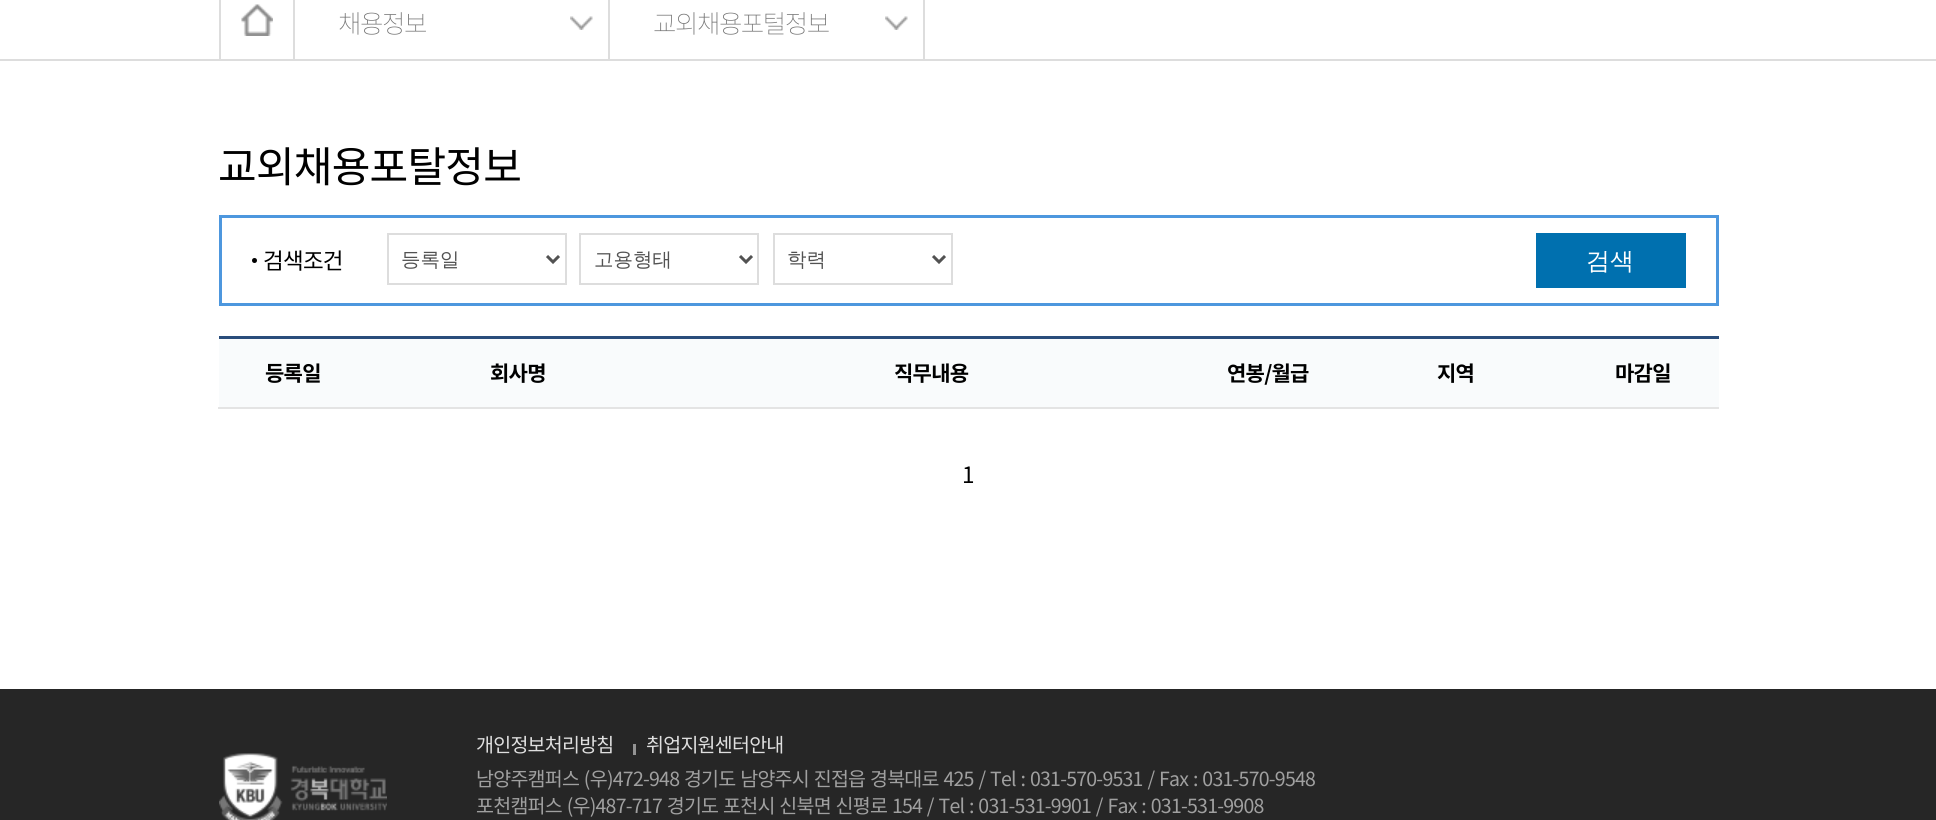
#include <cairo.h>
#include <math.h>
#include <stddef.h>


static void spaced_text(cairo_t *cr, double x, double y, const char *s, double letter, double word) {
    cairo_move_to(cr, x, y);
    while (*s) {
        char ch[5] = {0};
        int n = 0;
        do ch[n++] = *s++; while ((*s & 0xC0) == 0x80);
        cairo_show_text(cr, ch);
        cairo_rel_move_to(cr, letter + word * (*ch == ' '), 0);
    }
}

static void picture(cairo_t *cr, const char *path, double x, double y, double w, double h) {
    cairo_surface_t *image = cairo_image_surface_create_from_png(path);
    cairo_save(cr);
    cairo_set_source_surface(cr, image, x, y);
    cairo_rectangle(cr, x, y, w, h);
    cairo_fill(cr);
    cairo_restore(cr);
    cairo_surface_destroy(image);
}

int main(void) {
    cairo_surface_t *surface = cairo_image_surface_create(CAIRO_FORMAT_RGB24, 1936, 820);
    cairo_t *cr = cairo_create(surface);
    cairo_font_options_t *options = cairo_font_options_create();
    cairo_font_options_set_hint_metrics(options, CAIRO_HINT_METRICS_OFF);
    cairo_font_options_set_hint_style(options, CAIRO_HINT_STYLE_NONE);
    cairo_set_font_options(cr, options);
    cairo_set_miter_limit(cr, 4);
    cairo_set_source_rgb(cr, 1, 1, 1);
    cairo_paint(cr);
    cairo_set_source_rgb(cr, 0.867, 0.867, 0.867);
    cairo_rectangle(cr, 0, 59, 1936, 2);
    cairo_fill(cr);
    cairo_rectangle(cr, 293, 0, 2, 60);
    cairo_fill(cr);
    cairo_rectangle(cr, 219, 0, 2, 60);
    cairo_fill(cr);
    picture(cr, "img1.png", 241, 4, 32, 32);
    picture(cr, "img2.png", 570, 16, 23, 14);
    cairo_rectangle(cr, 608, 0, 2, 60);
    cairo_fill(cr);
    cairo_select_font_face(cr, "Noto Sans KR Thin", CAIRO_FONT_SLANT_NORMAL, CAIRO_FONT_WEIGHT_NORMAL);
    cairo_set_font_size(cr, 25.5);
    cairo_set_source_rgb(cr, 0.451, 0.451, 0.451);
    spaced_text(cr, 338, 33, "채용정보", -1.5, 0);
    picture(cr, "img3.png", 885, 16, 23, 14);
    cairo_set_source_rgb(cr, 0.867, 0.867, 0.867);
    cairo_rectangle(cr, 923, 0, 2, 60);
    cairo_fill(cr);
    cairo_set_source_rgb(cr, 0.451, 0.451, 0.451);
    spaced_text(cr, 653, 33, "교외채용포털정보", -1.5, 0);
    cairo_select_font_face(cr, "Noto Sans KR", CAIRO_FONT_SLANT_NORMAL, CAIRO_FONT_WEIGHT_NORMAL);
    cairo_set_font_size(cr, 42);
    cairo_set_source_rgb(cr, 0, 0, 0);
    spaced_text(cr, 218, 182, "교외채용포탈정보", -0.75, 0);
    cairo_rectangle(cr, 220.5, 216.5, 1497, 88);
    cairo_set_source_rgb(cr, 0.302, 0.592, 0.871);
    cairo_set_line_width(cr, 3);
    cairo_stroke(cr);
    cairo_set_source_rgb(cr, 0, 0, 0);
    cairo_arc(cr, 254.5, 260.5, 2.5, 0, 2 * M_PI);
    cairo_fill(cr);
    cairo_set_font_size(cr, 22.5);
    spaced_text(cr, 263, 269, "검색조건", -0.75, 0);
    cairo_rectangle(cr, 388, 234, 178, 50);
    cairo_set_source_rgb(cr, 0.867, 0.867, 0.867);
    cairo_set_line_width(cr, 2);
    cairo_stroke(cr);
    cairo_new_path(cr);
    cairo_move_to(cr, 547, 256);
    cairo_line_to(cr, 553, 262);
    cairo_line_to(cr, 559, 256);
    cairo_set_source_rgb(cr, 0.322, 0.322, 0.322);
    cairo_set_line_width(cr, 3);
    cairo_stroke(cr);
    cairo_select_font_face(cr, "WenQuanYi Zen Hei Medium", CAIRO_FONT_SLANT_NORMAL, CAIRO_FONT_WEIGHT_NORMAL);
    cairo_set_font_size(cr, 19.5);
    cairo_move_to(cr, 401, 266);
    cairo_show_text(cr, "등록일");
    cairo_rectangle(cr, 580, 234, 178, 50);
    cairo_set_source_rgb(cr, 0.867, 0.867, 0.867);
    cairo_set_line_width(cr, 2);
    cairo_stroke(cr);
    cairo_new_path(cr);
    cairo_move_to(cr, 740, 256);
    cairo_line_to(cr, 746, 262);
    cairo_line_to(cr, 752, 256);
    cairo_set_source_rgb(cr, 0.322, 0.322, 0.322);
    cairo_set_line_width(cr, 3);
    cairo_stroke(cr);
    cairo_move_to(cr, 594, 266);
    cairo_show_text(cr, "고용형태");
    cairo_rectangle(cr, 774, 234, 178, 50);
    cairo_set_source_rgb(cr, 0.867, 0.867, 0.867);
    cairo_set_line_width(cr, 2);
    cairo_stroke(cr);
    cairo_new_path(cr);
    cairo_move_to(cr, 933, 256);
    cairo_line_to(cr, 939, 262);
    cairo_line_to(cr, 945, 256);
    cairo_set_source_rgb(cr, 0.322, 0.322, 0.322);
    cairo_set_line_width(cr, 3);
    cairo_stroke(cr);
    cairo_move_to(cr, 787, 266);
    cairo_show_text(cr, "학력");
    cairo_set_source_rgb(cr, 0, 0.439, 0.686);
    cairo_rectangle(cr, 1536, 233, 150, 55);
    cairo_fill(cr);
    cairo_set_font_size(cr, 24);
    cairo_set_source_rgb(cr, 1, 1, 1);
    cairo_move_to(cr, 1586, 269);
    cairo_show_text(cr, "검색");
    cairo_set_source_rgb(cr, 0.161, 0.302, 0.482);
    cairo_rectangle(cr, 219, 336, 1500, 3);
    cairo_fill(cr);
    cairo_set_source_rgb(cr, 0.976, 0.984, 0.988);
    cairo_rectangle(cr, 219, 339, 1500, 68);
    cairo_fill(cr);
    cairo_select_font_face(cr, "Noto Sans KR", CAIRO_FONT_SLANT_NORMAL, CAIRO_FONT_WEIGHT_BOLD);
    cairo_set_font_size(cr, 21);
    cairo_set_source_rgb(cr, 0, 0, 0);
    spaced_text(cr, 265, 381, "등록일", -0.75, 0);
    spaced_text(cr, 490, 381, "회사명", -0.75, 0);
    spaced_text(cr, 894, 381, "직무내용", -0.75, 0);
    spaced_text(cr, 1227, 381, "연봉/월급", -0.75, 0);
    spaced_text(cr, 1437, 381, "지역", -0.75, 0);
    cairo_set_source_rgb(cr, 0.894, 0.894, 0.894);
    cairo_rectangle(cr, 218, 407, 1501, 2);
    cairo_fill(cr);
    cairo_set_source_rgb(cr, 0, 0, 0);
    spaced_text(cr, 1615, 381, "마감일", -0.75, 0);
    cairo_select_font_face(cr, "Noto Sans KR", CAIRO_FONT_SLANT_NORMAL, CAIRO_FONT_WEIGHT_NORMAL);
    cairo_set_font_size(cr, 22.5);
    spaced_text(cr, 962, 483, "1", -0.75, 0);
    cairo_set_source_rgb(cr, 0.149, 0.149, 0.149);
    cairo_rectangle(cr, 0, 689, 1936, 131);
    cairo_fill(cr);
    picture(cr, "img4.png", 219, 753, 168, 67);
    cairo_set_font_size(cr, 19.5);
    cairo_set_source_rgb(cr, 0.875, 0.875, 0.875);
    spaced_text(cr, 476, 752, "개인정보처리방침", -0.75, 0);
    cairo_set_source_rgb(cr, 0.576, 0.576, 0.576);
    cairo_rectangle(cr, 633, 744, 3, 11);
    cairo_fill(cr);
    cairo_set_source_rgb(cr, 0.875, 0.875, 0.875);
    spaced_text(cr, 646, 752, "취업지원센터안내", -0.75, 0);
    cairo_set_source_rgb(cr, 0.627, 0.627, 0.627);
    spaced_text(cr, 476, 786, "남양주캠퍼스 (우)472-948 경기도 남양주시 진접읍 경북대로 425 / Tel : 031-570-9531 / Fax : 031-570-9548", -0.75, 1.1);
    spaced_text(cr, 476, 813, "포천캠퍼스 (우)487-717 경기도 포천시 신북면 신평로 154 / Tel : 031-531-9901 / Fax : 031-531-9908", -0.75, 1.1);
    cairo_surface_write_to_png(surface, "page.png");
    cairo_font_options_destroy(options);
    cairo_destroy(cr);
    cairo_surface_destroy(surface);
    return 0;
}
